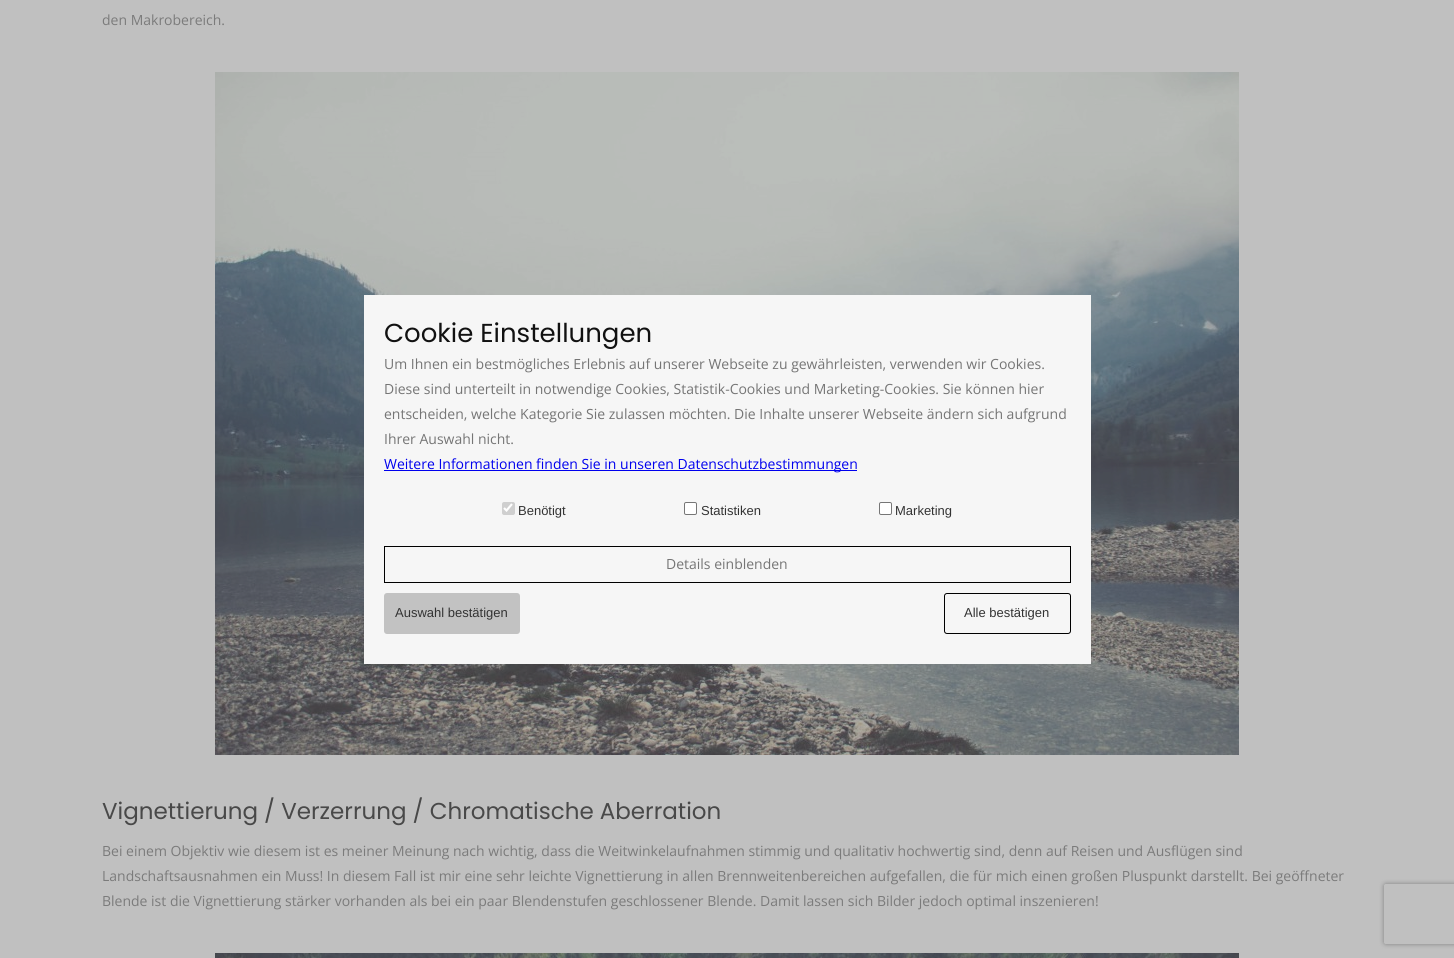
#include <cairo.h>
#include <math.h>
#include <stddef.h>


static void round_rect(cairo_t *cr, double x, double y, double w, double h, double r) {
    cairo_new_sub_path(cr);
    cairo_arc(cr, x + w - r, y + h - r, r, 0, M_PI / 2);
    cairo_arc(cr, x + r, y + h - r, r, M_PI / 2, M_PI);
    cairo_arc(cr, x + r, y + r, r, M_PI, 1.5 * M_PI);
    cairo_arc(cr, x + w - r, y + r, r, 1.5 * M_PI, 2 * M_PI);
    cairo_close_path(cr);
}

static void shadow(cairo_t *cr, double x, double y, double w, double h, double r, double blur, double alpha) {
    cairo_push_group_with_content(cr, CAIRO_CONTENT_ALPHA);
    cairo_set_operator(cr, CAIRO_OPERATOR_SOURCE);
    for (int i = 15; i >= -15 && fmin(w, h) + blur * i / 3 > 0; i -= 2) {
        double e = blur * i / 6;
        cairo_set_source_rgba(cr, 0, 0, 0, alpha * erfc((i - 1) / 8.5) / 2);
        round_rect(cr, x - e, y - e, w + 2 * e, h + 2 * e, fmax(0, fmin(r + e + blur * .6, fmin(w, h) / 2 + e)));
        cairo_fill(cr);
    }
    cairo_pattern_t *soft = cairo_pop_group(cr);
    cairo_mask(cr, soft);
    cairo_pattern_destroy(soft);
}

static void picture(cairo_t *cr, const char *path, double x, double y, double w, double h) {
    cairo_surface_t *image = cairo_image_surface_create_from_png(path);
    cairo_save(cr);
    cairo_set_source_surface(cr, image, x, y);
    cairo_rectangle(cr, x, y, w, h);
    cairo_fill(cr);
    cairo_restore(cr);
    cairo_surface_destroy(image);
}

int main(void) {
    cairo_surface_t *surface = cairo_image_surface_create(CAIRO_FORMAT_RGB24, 1454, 958);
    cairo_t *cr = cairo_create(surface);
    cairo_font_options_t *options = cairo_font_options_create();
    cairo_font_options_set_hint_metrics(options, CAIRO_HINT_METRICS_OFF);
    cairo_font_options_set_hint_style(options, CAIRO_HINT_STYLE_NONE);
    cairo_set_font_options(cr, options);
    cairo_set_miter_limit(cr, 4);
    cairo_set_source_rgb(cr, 0.753, 0.753, 0.753);
    cairo_paint(cr);
    cairo_select_font_face(cr, "Open Sans", CAIRO_FONT_SLANT_NORMAL, CAIRO_FONT_WEIGHT_NORMAL);
    cairo_set_font_size(cr, 14);
    cairo_set_source_rgb(cr, 0.482, 0.482, 0.482);
    cairo_move_to(cr, 102, 25);
    cairo_show_text(cr, "den Makrobereich.");
    picture(cr, "img1.png", 215, 72, 1024, 683);
    cairo_select_font_face(cr, "Poppins", CAIRO_FONT_SLANT_NORMAL, CAIRO_FONT_WEIGHT_NORMAL);
    cairo_set_font_size(cr, 23);
    cairo_set_source_rgb(cr, 0.286, 0.286, 0.286);
    cairo_move_to(cr, 102, 819);
    cairo_show_text(cr, "Vignettierung / Verzerrung / Chromatische Aberration");
    cairo_select_font_face(cr, "Open Sans", CAIRO_FONT_SLANT_NORMAL, CAIRO_FONT_WEIGHT_NORMAL);
    cairo_set_font_size(cr, 14);
    cairo_set_source_rgb(cr, 0.482, 0.482, 0.482);
    cairo_move_to(cr, 102, 856);
    cairo_show_text(cr, "Bei einem Objektiv wie diesem ist es meiner Meinung nach wichtig, dass die Weitwinkelaufnahmen stimmig und qualitativ hochwertig sind, denn auf Reisen und Ausflügen sind");
    cairo_move_to(cr, 102, 881);
    cairo_show_text(cr, "Landschaftsausnahmen ein Muss! In diesem Fall ist mir eine sehr leichte Vignettierung in allen Brennweitenbereichen aufgefallen, die für mich einen großen Pluspunkt darstellt. Bei geöffneter");
    cairo_move_to(cr, 102, 906);
    cairo_show_text(cr, "Blende ist die Vignettierung stärker vorhanden als bei ein paar Blendenstufen geschlossener Blende. Damit lassen sich Bilder jedoch optimal inszenieren!");
    picture(cr, "img2.png", 215, 953, 1024, 5);
    cairo_set_source_rgb(cr, 0.961, 0.961, 0.961);
    cairo_rectangle(cr, 364, 295, 727, 369);
    cairo_fill(cr);
    cairo_select_font_face(cr, "Poppins", CAIRO_FONT_SLANT_NORMAL, CAIRO_FONT_WEIGHT_NORMAL);
    cairo_set_font_size(cr, 26);
    cairo_set_source_rgb(cr, 0.067, 0.067, 0.067);
    cairo_move_to(cr, 384, 342);
    cairo_show_text(cr, "Cookie Einstellungen");
    cairo_select_font_face(cr, "Open Sans", CAIRO_FONT_SLANT_NORMAL, CAIRO_FONT_WEIGHT_NORMAL);
    cairo_set_font_size(cr, 14);
    cairo_set_source_rgb(cr, 0.459, 0.459, 0.459);
    cairo_move_to(cr, 384, 369);
    cairo_show_text(cr, "Um Ihnen ein bestmögliches Erlebnis auf unserer Webseite zu gewährleisten, verwenden wir Cookies.");
    cairo_move_to(cr, 384, 394);
    cairo_show_text(cr, "Diese sind unterteilt in notwendige Cookies, Statistik-Cookies und Marketing-Cookies. Sie können hier");
    cairo_move_to(cr, 384, 419);
    cairo_show_text(cr, "entscheiden, welche Kategorie Sie zulassen möchten. Die Inhalte unserer Webseite ändern sich aufgrund");
    cairo_move_to(cr, 384, 444);
    cairo_show_text(cr, "Ihrer Auswahl nicht.");
    cairo_set_source_rgb(cr, 0, 0, 0.933);
    cairo_rectangle(cr, 384, 470, 473, 1);
    cairo_fill(cr);
    cairo_move_to(cr, 384, 469);
    cairo_show_text(cr, "Weitere Informationen finden Sie in unseren Datenschutzbestimmungen");
    cairo_set_source_rgb(cr, 0.812, 0.812, 0.812);
    round_rect(cr, 502, 502, 13, 13, 2);
    cairo_fill(cr);
    cairo_new_path(cr);
    cairo_move_to(cr, 504, 508);
    cairo_line_to(cr, 506.5, 510.5);
    cairo_line_to(cr, 512, 504);
    cairo_set_source_rgb(cr, 1, 1, 1);
    cairo_set_line_width(cr, 2.1);
    cairo_stroke(cr);
    cairo_select_font_face(cr, "Liberation Sans", CAIRO_FONT_SLANT_NORMAL, CAIRO_FONT_WEIGHT_NORMAL);
    cairo_set_font_size(cr, 13);
    cairo_set_source_rgb(cr, 0.2, 0.2, 0.2);
    cairo_move_to(cr, 518, 515);
    cairo_show_text(cr, "Benötigt");
    cairo_set_source_rgb(cr, 1, 1, 1);
    round_rect(cr, 684.5, 502.5, 12, 12, 1.5);
    cairo_fill_preserve(cr);
    cairo_set_source_rgb(cr, 0.463, 0.463, 0.463);
    cairo_set_line_width(cr, 1);
    cairo_stroke(cr);
    cairo_set_source_rgb(cr, 0.2, 0.2, 0.2);
    cairo_move_to(cr, 701, 515);
    cairo_show_text(cr, "Statistiken");
    cairo_set_source_rgb(cr, 1, 1, 1);
    round_rect(cr, 879.5, 502.5, 12, 12, 1.5);
    cairo_fill_preserve(cr);
    cairo_set_source_rgb(cr, 0.463, 0.463, 0.463);
    cairo_stroke(cr);
    cairo_set_source_rgb(cr, 0.2, 0.2, 0.2);
    cairo_move_to(cr, 895, 515);
    cairo_show_text(cr, "Marketing");
    cairo_rectangle(cr, 384.5, 546.5, 686, 36);
    cairo_set_source_rgb(cr, 0, 0, 0);
    cairo_stroke(cr);
    cairo_select_font_face(cr, "Open Sans", CAIRO_FONT_SLANT_NORMAL, CAIRO_FONT_WEIGHT_NORMAL);
    cairo_set_font_size(cr, 14);
    cairo_set_source_rgb(cr, 0.459, 0.459, 0.459);
    cairo_move_to(cr, 666, 569);
    cairo_show_text(cr, "Details einblenden");
    cairo_set_source_rgb(cr, 0.761, 0.761, 0.761);
    round_rect(cr, 384, 593, 136, 41, 3);
    cairo_fill(cr);
    cairo_select_font_face(cr, "Liberation Sans", CAIRO_FONT_SLANT_NORMAL, CAIRO_FONT_WEIGHT_NORMAL);
    cairo_set_font_size(cr, 13);
    cairo_set_source_rgb(cr, 0.2, 0.2, 0.2);
    cairo_move_to(cr, 395, 617);
    cairo_show_text(cr, "Auswahl bestätigen");
    round_rect(cr, 944.5, 593.5, 126, 40, 2.5);
    cairo_set_source_rgb(cr, 0, 0, 0);
    cairo_stroke(cr);
    cairo_set_source_rgb(cr, 0.2, 0.2, 0.2);
    cairo_move_to(cr, 964, 617);
    cairo_show_text(cr, "Alle bestätigen");
    cairo_save(cr);
    cairo_set_fill_rule(cr, CAIRO_FILL_RULE_EVEN_ODD);
    cairo_new_path(cr);
    cairo_move_to(cr, 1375, 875);
    cairo_line_to(cr, 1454, 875);
    cairo_line_to(cr, 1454, 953);
    cairo_line_to(cr, 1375, 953);
    cairo_close_path(cr);
    cairo_move_to(cr, 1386, 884);
    cairo_line_to(cr, 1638, 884);
    cairo_curve_to(cr, 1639, 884, 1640, 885, 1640, 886);
    cairo_line_to(cr, 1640, 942);
    cairo_curve_to(cr, 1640, 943, 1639, 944, 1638, 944);
    cairo_line_to(cr, 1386, 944);
    cairo_curve_to(cr, 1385, 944, 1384, 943, 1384, 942);
    cairo_line_to(cr, 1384, 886);
    cairo_curve_to(cr, 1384, 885, 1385, 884, 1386, 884);
    cairo_close_path(cr);
    cairo_clip(cr);
    cairo_set_source_rgb(cr, 0.506, 0.506, 0.506);
    shadow(cr, 1384, 884, 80, 60, 2, 2.5, 1);
    cairo_restore(cr);
    cairo_surface_write_to_png(surface, "page.png");
    cairo_font_options_destroy(options);
    cairo_destroy(cr);
    cairo_surface_destroy(surface);
    return 0;
}
